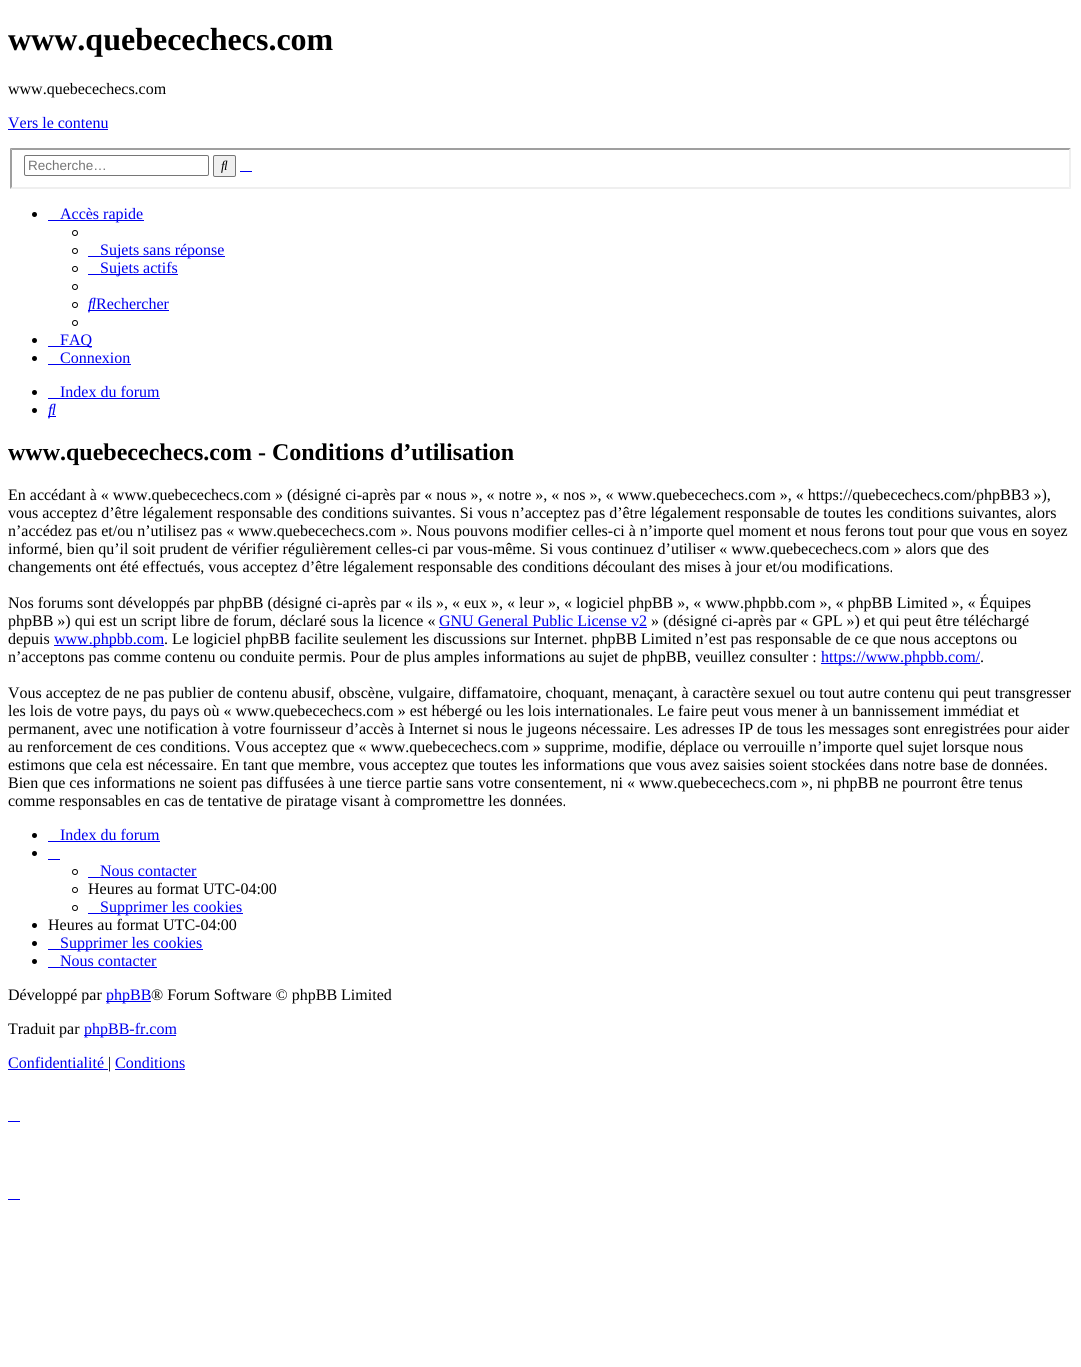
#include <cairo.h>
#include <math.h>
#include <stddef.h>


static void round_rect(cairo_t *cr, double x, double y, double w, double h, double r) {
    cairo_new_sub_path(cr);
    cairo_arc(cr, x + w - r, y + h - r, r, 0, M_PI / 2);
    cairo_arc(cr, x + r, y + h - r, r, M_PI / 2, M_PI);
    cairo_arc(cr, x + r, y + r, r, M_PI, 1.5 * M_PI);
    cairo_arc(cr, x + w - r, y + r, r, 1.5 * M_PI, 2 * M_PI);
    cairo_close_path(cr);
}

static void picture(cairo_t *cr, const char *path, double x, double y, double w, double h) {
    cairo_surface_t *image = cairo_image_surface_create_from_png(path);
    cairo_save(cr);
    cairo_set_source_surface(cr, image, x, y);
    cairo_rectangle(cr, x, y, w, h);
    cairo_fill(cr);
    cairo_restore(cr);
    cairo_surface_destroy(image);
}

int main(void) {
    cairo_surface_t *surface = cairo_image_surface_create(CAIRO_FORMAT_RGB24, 1081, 1367);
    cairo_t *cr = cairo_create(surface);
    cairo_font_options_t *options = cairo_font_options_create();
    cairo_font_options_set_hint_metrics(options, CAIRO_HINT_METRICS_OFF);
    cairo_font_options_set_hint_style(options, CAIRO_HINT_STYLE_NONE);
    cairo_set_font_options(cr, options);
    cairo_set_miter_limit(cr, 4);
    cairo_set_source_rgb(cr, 1, 1, 1);
    cairo_paint(cr);
    cairo_select_font_face(cr, "Liberation Serif", CAIRO_FONT_SLANT_NORMAL, CAIRO_FONT_WEIGHT_BOLD);
    cairo_set_font_size(cr, 32);
    cairo_set_source_rgb(cr, 0, 0, 0);
    cairo_move_to(cr, 8, 50);
    cairo_show_text(cr, "www.quebecechecs.com");
    cairo_select_font_face(cr, "Liberation Serif", CAIRO_FONT_SLANT_NORMAL, CAIRO_FONT_WEIGHT_NORMAL);
    cairo_set_font_size(cr, 16);
    cairo_move_to(cr, 8, 94);
    cairo_show_text(cr, "www.quebecechecs.com");
    cairo_set_source_rgb(cr, 0, 0, 0.933);
    cairo_move_to(cr, 8, 128);
    cairo_show_text(cr, "Vers le contenu");
    cairo_rectangle(cr, 8, 129, 100, 1);
    cairo_fill(cr);
    cairo_set_source_rgb(cr, 0.624, 0.624, 0.624);
    cairo_new_path(cr);
    cairo_move_to(cr, 10, 148);
    cairo_line_to(cr, 1071, 148);
    cairo_line_to(cr, 1069, 150);
    cairo_line_to(cr, 12, 150);
    cairo_close_path(cr);
    cairo_fill(cr);
    cairo_set_source_rgb(cr, 0.937, 0.937, 0.937);
    cairo_new_path(cr);
    cairo_move_to(cr, 1071, 148);
    cairo_line_to(cr, 1071, 189);
    cairo_line_to(cr, 1069, 187);
    cairo_line_to(cr, 1069, 150);
    cairo_close_path(cr);
    cairo_fill(cr);
    cairo_new_path(cr);
    cairo_move_to(cr, 1071, 189);
    cairo_line_to(cr, 10, 189);
    cairo_line_to(cr, 12, 187);
    cairo_line_to(cr, 1069, 187);
    cairo_close_path(cr);
    cairo_fill(cr);
    cairo_set_source_rgb(cr, 0.624, 0.624, 0.624);
    cairo_new_path(cr);
    cairo_move_to(cr, 10, 189);
    cairo_line_to(cr, 10, 148);
    cairo_line_to(cr, 12, 150);
    cairo_line_to(cr, 12, 187);
    cairo_close_path(cr);
    cairo_fill(cr);
    round_rect(cr, 24.5, 155.5, 184, 20, 1.5);
    cairo_set_source_rgb(cr, 0.463, 0.463, 0.463);
    cairo_set_line_width(cr, 1);
    cairo_stroke(cr);
    cairo_select_font_face(cr, "Liberation Sans", CAIRO_FONT_SLANT_NORMAL, CAIRO_FONT_WEIGHT_NORMAL);
    cairo_set_font_size(cr, 13.5);
    cairo_set_source_rgb(cr, 0.459, 0.459, 0.459);
    cairo_move_to(cr, 28, 170);
    cairo_show_text(cr, "Recherche…");
    cairo_set_source_rgb(cr, 0.937, 0.937, 0.937);
    round_rect(cr, 213.5, 155.5, 22, 21, 1.5);
    cairo_fill_preserve(cr);
    cairo_set_source_rgb(cr, 0.463, 0.463, 0.463);
    cairo_stroke(cr);
    picture(cr, "img1.png", 221, 160, 7, 13);
    cairo_set_source_rgb(cr, 0, 0, 0.933);
    cairo_rectangle(cr, 240, 171, 12, 1);
    cairo_fill(cr);
    cairo_set_source_rgb(cr, 0, 0, 0);
    cairo_arc(cr, 34.5, 214.5, 2.5, 0, 2 * M_PI);
    cairo_fill(cr);
    cairo_set_source_rgb(cr, 0, 0, 0.933);
    cairo_rectangle(cr, 48, 220, 96, 1);
    cairo_fill(cr);
    cairo_select_font_face(cr, "Liberation Serif", CAIRO_FONT_SLANT_NORMAL, CAIRO_FONT_WEIGHT_NORMAL);
    cairo_set_font_size(cr, 16);
    cairo_move_to(cr, 60, 219);
    cairo_show_text(cr, "Accès rapide");
    cairo_new_path(cr);
    cairo_arc(cr, 75, 233, 2.5, 0, 2 * M_PI);
    cairo_set_source_rgb(cr, 0, 0, 0);
    cairo_stroke(cr);
    cairo_arc(cr, 75, 251, 2.5, 0, 2 * M_PI);
    cairo_stroke(cr);
    cairo_set_source_rgb(cr, 0, 0, 0.933);
    cairo_rectangle(cr, 88, 256, 137, 1);
    cairo_fill(cr);
    cairo_move_to(cr, 100, 255);
    cairo_show_text(cr, "Sujets sans réponse");
    cairo_new_path(cr);
    cairo_arc(cr, 75, 269, 2.5, 0, 2 * M_PI);
    cairo_set_source_rgb(cr, 0, 0, 0);
    cairo_stroke(cr);
    cairo_set_source_rgb(cr, 0, 0, 0.933);
    cairo_rectangle(cr, 88, 274, 90, 1);
    cairo_fill(cr);
    cairo_move_to(cr, 100, 273);
    cairo_show_text(cr, "Sujets actifs");
    cairo_new_path(cr);
    cairo_arc(cr, 75, 287, 2.5, 0, 2 * M_PI);
    cairo_set_source_rgb(cr, 0, 0, 0);
    cairo_stroke(cr);
    cairo_arc(cr, 75, 305, 2.5, 0, 2 * M_PI);
    cairo_stroke(cr);
    cairo_set_source_rgb(cr, 0, 0, 0.933);
    cairo_rectangle(cr, 88, 310, 81, 1);
    cairo_fill(cr);
    picture(cr, "img2.png", 88, 297, 8, 16);
    cairo_move_to(cr, 96, 309);
    cairo_show_text(cr, "Rechercher");
    cairo_new_path(cr);
    cairo_arc(cr, 75, 323, 2.5, 0, 2 * M_PI);
    cairo_set_source_rgb(cr, 0, 0, 0);
    cairo_stroke(cr);
    cairo_arc(cr, 34.5, 340.5, 2.5, 0, 2 * M_PI);
    cairo_fill(cr);
    cairo_set_source_rgb(cr, 0, 0, 0.933);
    cairo_rectangle(cr, 48, 346, 44, 1);
    cairo_fill(cr);
    cairo_move_to(cr, 60, 345);
    cairo_show_text(cr, "FAQ");
    cairo_set_source_rgb(cr, 0, 0, 0);
    cairo_new_path(cr);
    cairo_arc(cr, 34.5, 358.5, 2.5, 0, 2 * M_PI);
    cairo_fill(cr);
    cairo_set_source_rgb(cr, 0, 0, 0.933);
    cairo_move_to(cr, 60, 363);
    cairo_show_text(cr, "Connexion");
    cairo_rectangle(cr, 48, 364, 83, 1);
    cairo_fill(cr);
    cairo_set_source_rgb(cr, 0, 0, 0);
    cairo_arc(cr, 34.5, 392.5, 2.5, 0, 2 * M_PI);
    cairo_fill(cr);
    cairo_set_source_rgb(cr, 0, 0, 0.933);
    cairo_move_to(cr, 60, 397);
    cairo_show_text(cr, "Index du forum");
    cairo_rectangle(cr, 48, 398, 112, 1);
    cairo_fill(cr);
    cairo_set_source_rgb(cr, 0, 0, 0);
    cairo_arc(cr, 34.5, 410.5, 2.5, 0, 2 * M_PI);
    cairo_fill(cr);
    cairo_set_source_rgb(cr, 0, 0, 0.933);
    cairo_rectangle(cr, 48, 416, 8, 1);
    cairo_fill(cr);
    picture(cr, "img2.png", 48, 403, 8, 16);
    cairo_select_font_face(cr, "Liberation Serif", CAIRO_FONT_SLANT_NORMAL, CAIRO_FONT_WEIGHT_BOLD);
    cairo_set_font_size(cr, 24);
    cairo_set_source_rgb(cr, 0, 0, 0);
    cairo_move_to(cr, 8, 460);
    cairo_show_text(cr, "www.quebecechecs.com - Conditions d’utilisation");
    cairo_select_font_face(cr, "Liberation Serif", CAIRO_FONT_SLANT_NORMAL, CAIRO_FONT_WEIGHT_NORMAL);
    cairo_set_font_size(cr, 16);
    cairo_move_to(cr, 8, 500);
    cairo_show_text(cr, "En accédant à « www.quebecechecs.com » (désigné ci-après par « nous », « notre », « nos », « www.quebecechecs.com », « https://quebecechecs.com/phpBB3 »),");
    cairo_move_to(cr, 8, 518);
    cairo_show_text(cr, "vous acceptez d’être légalement responsable des conditions suivantes. Si vous n’acceptez pas d’être légalement responsable de toutes les conditions suivantes, alors");
    cairo_move_to(cr, 8, 536);
    cairo_show_text(cr, "n’accédez pas et/ou n’utilisez pas « www.quebecechecs.com ». Nous pouvons modifier celles-ci à n’importe quel moment et nous ferons tout pour que vous en soyez");
    cairo_move_to(cr, 8, 554);
    cairo_show_text(cr, "informé, bien qu’il soit prudent de vérifier régulièrement celles-ci par vous-même. Si vous continuez d’utiliser « www.quebecechecs.com » alors que des");
    cairo_move_to(cr, 8, 572);
    cairo_show_text(cr, "changements ont été effectués, vous acceptez d’être légalement responsable des conditions découlant des mises à jour et/ou modifications.");
    cairo_move_to(cr, 8, 608);
    cairo_show_text(cr, "Nos forums sont développés par phpBB (désigné ci-après par « ils », « eux », « leur », « logiciel phpBB », « www.phpbb.com », « phpBB Limited », « Équipes");
    cairo_move_to(cr, 8, 626);
    cairo_show_text(cr, "phpBB ») qui est un script libre de forum, déclaré sous la licence «");
    cairo_set_source_rgb(cr, 0, 0, 0.933);
    cairo_move_to(cr, 439, 626);
    cairo_show_text(cr, "GNU General Public License v2");
    cairo_rectangle(cr, 439, 627, 208, 1);
    cairo_fill(cr);
    cairo_set_source_rgb(cr, 0, 0, 0);
    cairo_move_to(cr, 651, 626);
    cairo_show_text(cr, "» (désigné ci-après par « GPL ») et qui peut être téléchargé");
    cairo_move_to(cr, 8, 644);
    cairo_show_text(cr, "depuis");
    cairo_set_source_rgb(cr, 0, 0, 0.933);
    cairo_rectangle(cr, 54, 645, 110, 1);
    cairo_fill(cr);
    cairo_move_to(cr, 54, 644);
    cairo_show_text(cr, "www.phpbb.com");
    cairo_set_source_rgb(cr, 0, 0, 0);
    cairo_move_to(cr, 164, 644);
    cairo_show_text(cr, ". Le logiciel phpBB facilite seulement les discussions sur Internet. phpBB Limited n’est pas responsable de ce que nous acceptons ou");
    cairo_move_to(cr, 8, 662);
    cairo_show_text(cr, "n’acceptons pas comme contenu ou conduite permis. Pour de plus amples informations au sujet de phpBB, veuillez consulter :");
    cairo_set_source_rgb(cr, 0, 0, 0.933);
    cairo_rectangle(cr, 821, 663, 159, 1);
    cairo_fill(cr);
    cairo_move_to(cr, 821, 662);
    cairo_show_text(cr, "https://www.phpbb.com/");
    cairo_set_source_rgb(cr, 0, 0, 0);
    cairo_move_to(cr, 980, 662);
    cairo_show_text(cr, ".");
    cairo_move_to(cr, 8, 698);
    cairo_show_text(cr, "Vous acceptez de ne pas publier de contenu abusif, obscène, vulgaire, diffamatoire, choquant, menaçant, à caractère sexuel ou tout autre contenu qui peut transgresser");
    cairo_move_to(cr, 8, 716);
    cairo_show_text(cr, "les lois de votre pays, du pays où « www.quebecechecs.com » est hébergé ou les lois internationales. Le faire peut vous mener à un bannissement immédiat et");
    cairo_move_to(cr, 8, 734);
    cairo_show_text(cr, "permanent, avec une notification à votre fournisseur d’accès à Internet si nous le jugeons nécessaire. Les adresses IP de tous les messages sont enregistrées pour aider");
    cairo_move_to(cr, 8, 752);
    cairo_show_text(cr, "au renforcement de ces conditions. Vous acceptez que « www.quebecechecs.com » supprime, modifie, déplace ou verrouille n’importe quel sujet lorsque nous");
    cairo_move_to(cr, 8, 770);
    cairo_show_text(cr, "estimons que cela est nécessaire. En tant que membre, vous acceptez que toutes les informations que vous avez saisies soient stockées dans notre base de données.");
    cairo_move_to(cr, 8, 788);
    cairo_show_text(cr, "Bien que ces informations ne soient pas diffusées à une tierce partie sans votre consentement, ni « www.quebecechecs.com », ni phpBB ne pourront être tenus");
    cairo_move_to(cr, 8, 806);
    cairo_show_text(cr, "comme responsables en cas de tentative de piratage visant à compromettre les données.");
    cairo_new_path(cr);
    cairo_arc(cr, 34.5, 835.5, 2.5, 0, 2 * M_PI);
    cairo_fill(cr);
    cairo_set_source_rgb(cr, 0, 0, 0.933);
    cairo_move_to(cr, 60, 840);
    cairo_show_text(cr, "Index du forum");
    cairo_rectangle(cr, 48, 841, 112, 1);
    cairo_fill(cr);
    cairo_set_source_rgb(cr, 0, 0, 0);
    cairo_arc(cr, 34.5, 853.5, 2.5, 0, 2 * M_PI);
    cairo_fill(cr);
    cairo_set_source_rgb(cr, 0, 0, 0.933);
    cairo_rectangle(cr, 48, 859, 12, 1);
    cairo_fill(cr);
    cairo_arc(cr, 75, 872, 2.5, 0, 2 * M_PI);
    cairo_set_source_rgb(cr, 0, 0, 0);
    cairo_stroke(cr);
    cairo_set_source_rgb(cr, 0, 0, 0.933);
    cairo_move_to(cr, 100, 876);
    cairo_show_text(cr, "Nous contacter");
    cairo_rectangle(cr, 88, 877, 109, 1);
    cairo_fill(cr);
    cairo_arc(cr, 75, 890, 2.5, 0, 2 * M_PI);
    cairo_set_source_rgb(cr, 0, 0, 0);
    cairo_stroke(cr);
    cairo_move_to(cr, 88, 894);
    cairo_show_text(cr, "Heures au format UTC-04:00");
    cairo_new_path(cr);
    cairo_arc(cr, 75, 908, 2.5, 0, 2 * M_PI);
    cairo_stroke(cr);
    cairo_set_source_rgb(cr, 0, 0, 0.933);
    cairo_rectangle(cr, 88, 913, 155, 1);
    cairo_fill(cr);
    cairo_move_to(cr, 100, 912);
    cairo_show_text(cr, "Supprimer les cookies");
    cairo_set_source_rgb(cr, 0, 0, 0);
    cairo_new_path(cr);
    cairo_arc(cr, 34.5, 925.5, 2.5, 0, 2 * M_PI);
    cairo_fill(cr);
    cairo_move_to(cr, 48, 930);
    cairo_show_text(cr, "Heures au format UTC-04:00");
    cairo_new_path(cr);
    cairo_arc(cr, 34.5, 943.5, 2.5, 0, 2 * M_PI);
    cairo_fill(cr);
    cairo_set_source_rgb(cr, 0, 0, 0.933);
    cairo_rectangle(cr, 48, 949, 155, 1);
    cairo_fill(cr);
    cairo_move_to(cr, 60, 948);
    cairo_show_text(cr, "Supprimer les cookies");
    cairo_set_source_rgb(cr, 0, 0, 0);
    cairo_new_path(cr);
    cairo_arc(cr, 34.5, 961.5, 2.5, 0, 2 * M_PI);
    cairo_fill(cr);
    cairo_set_source_rgb(cr, 0, 0, 0.933);
    cairo_move_to(cr, 60, 966);
    cairo_show_text(cr, "Nous contacter");
    cairo_rectangle(cr, 48, 967, 109, 1);
    cairo_fill(cr);
    cairo_set_source_rgb(cr, 0, 0, 0);
    cairo_move_to(cr, 8, 1000);
    cairo_show_text(cr, "Développé par");
    cairo_set_source_rgb(cr, 0, 0, 0.933);
    cairo_rectangle(cr, 106, 1001, 45, 1);
    cairo_fill(cr);
    cairo_move_to(cr, 106, 1000);
    cairo_show_text(cr, "phpBB");
    cairo_set_source_rgb(cr, 0, 0, 0);
    cairo_move_to(cr, 151, 1000);
    cairo_show_text(cr, "® Forum Software © phpBB Limited");
    cairo_move_to(cr, 8, 1034);
    cairo_show_text(cr, "Traduit par");
    cairo_set_source_rgb(cr, 0, 0, 0.933);
    cairo_rectangle(cr, 84, 1035, 92, 1);
    cairo_fill(cr);
    cairo_move_to(cr, 84, 1034);
    cairo_show_text(cr, "phpBB-fr.com");
    cairo_move_to(cr, 8, 1068);
    cairo_show_text(cr, "Confidentialité");
    cairo_rectangle(cr, 8, 1069, 100, 1);
    cairo_fill(cr);
    cairo_set_source_rgb(cr, 0, 0, 0);
    cairo_move_to(cr, 108, 1068);
    cairo_show_text(cr, "|");
    cairo_set_source_rgb(cr, 0, 0, 0.933);
    cairo_move_to(cr, 115, 1068);
    cairo_show_text(cr, "Conditions");
    cairo_rectangle(cr, 115, 1069, 70, 1);
    cairo_fill(cr);
    cairo_rectangle(cr, 8, 1121, 12, 1);
    cairo_fill(cr);
    cairo_rectangle(cr, 8, 1199, 12, 1);
    cairo_fill(cr);
    cairo_surface_write_to_png(surface, "page.png");
    cairo_font_options_destroy(options);
    cairo_destroy(cr);
    cairo_surface_destroy(surface);
    return 0;
}
